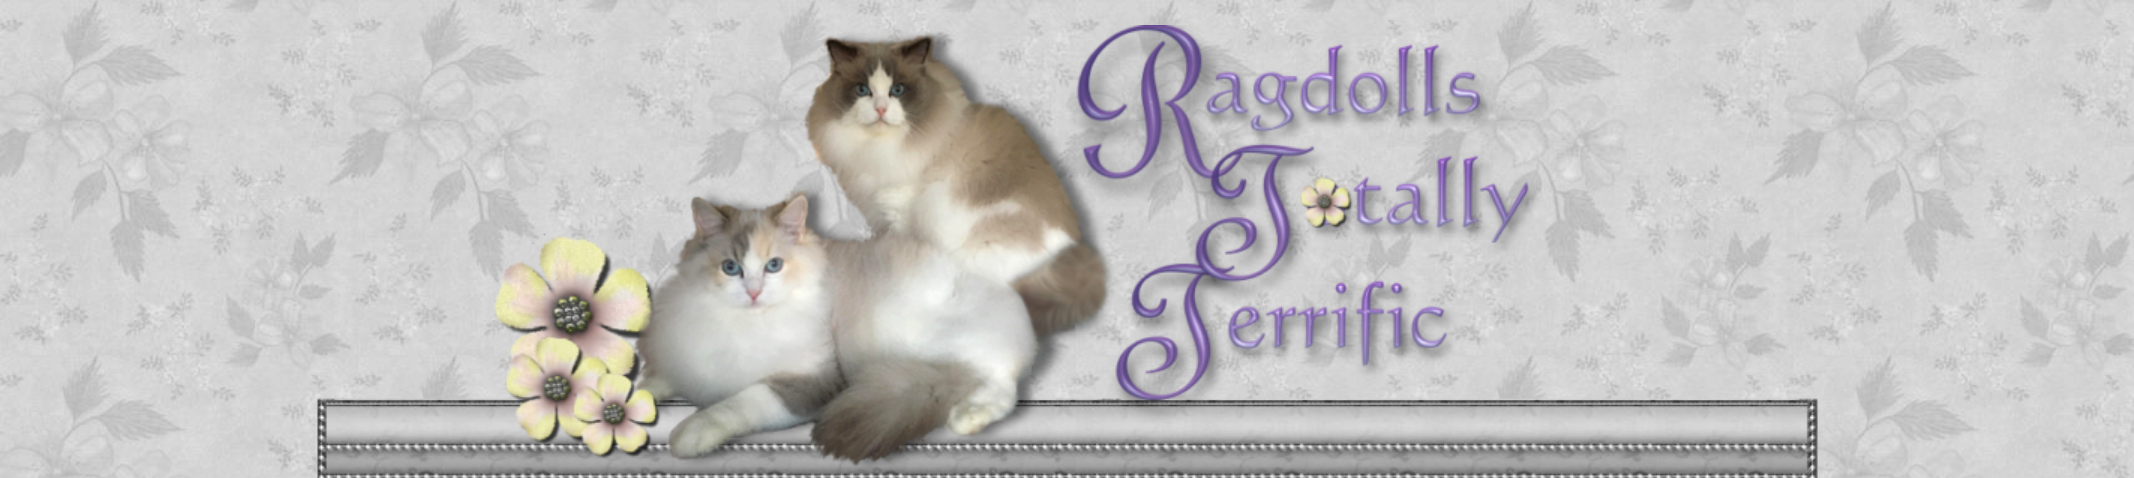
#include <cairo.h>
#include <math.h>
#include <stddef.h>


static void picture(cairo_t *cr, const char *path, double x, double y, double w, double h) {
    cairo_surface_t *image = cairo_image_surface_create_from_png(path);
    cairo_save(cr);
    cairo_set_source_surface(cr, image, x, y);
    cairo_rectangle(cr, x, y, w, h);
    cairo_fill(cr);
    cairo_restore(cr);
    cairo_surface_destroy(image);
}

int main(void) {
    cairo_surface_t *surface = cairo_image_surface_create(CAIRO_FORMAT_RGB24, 2134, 478);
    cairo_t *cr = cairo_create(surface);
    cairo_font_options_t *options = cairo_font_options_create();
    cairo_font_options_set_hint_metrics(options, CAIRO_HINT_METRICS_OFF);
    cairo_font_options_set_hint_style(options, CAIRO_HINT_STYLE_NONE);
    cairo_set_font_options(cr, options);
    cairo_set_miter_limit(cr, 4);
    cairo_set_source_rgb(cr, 1, 1, 1);
    cairo_paint(cr);
    picture(cr, "img1.png", 0, 0, 2134, 478);
    picture(cr, "img2.png", 317, 25, 1501, 453);
    cairo_surface_write_to_png(surface, "page.png");
    cairo_font_options_destroy(options);
    cairo_destroy(cr);
    cairo_surface_destroy(surface);
    return 0;
}
